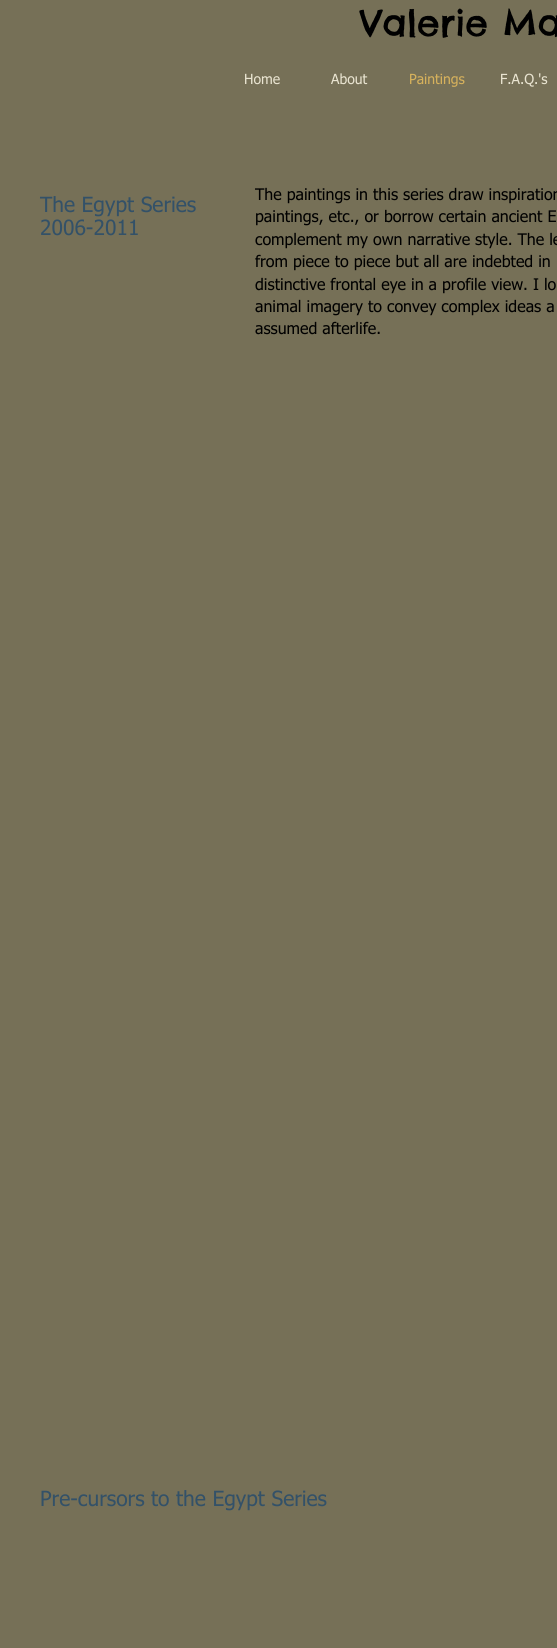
#include <cairo.h>
#include <math.h>
#include <stddef.h>


int main(void) {
    cairo_surface_t *surface = cairo_image_surface_create(CAIRO_FORMAT_RGB24, 557, 1648);
    cairo_t *cr = cairo_create(surface);
    cairo_font_options_t *options = cairo_font_options_create();
    cairo_font_options_set_hint_metrics(options, CAIRO_HINT_METRICS_OFF);
    cairo_font_options_set_hint_style(options, CAIRO_HINT_STYLE_NONE);
    cairo_set_font_options(cr, options);
    cairo_set_miter_limit(cr, 4);
    cairo_set_source_rgb(cr, 0.463, 0.439, 0.341);
    cairo_paint(cr);
    cairo_select_font_face(cr, "Chelsea Market", CAIRO_FONT_SLANT_NORMAL, CAIRO_FONT_WEIGHT_NORMAL);
    cairo_set_font_size(cr, 36);
    cairo_set_source_rgb(cr, 0, 0, 0);
    cairo_move_to(cr, 360, 36);
    cairo_show_text(cr, "Valerie Ma");
    cairo_select_font_face(cr, "tahoma", CAIRO_FONT_SLANT_NORMAL, CAIRO_FONT_WEIGHT_NORMAL);
    cairo_set_font_size(cr, 14);
    cairo_set_source_rgb(cr, 0.914, 0.894, 0.82);
    cairo_move_to(cr, 244, 84);
    cairo_show_text(cr, "Home");
    cairo_move_to(cr, 331, 84);
    cairo_show_text(cr, "About");
    cairo_set_source_rgb(cr, 0.839, 0.694, 0.361);
    cairo_move_to(cr, 409, 84);
    cairo_show_text(cr, "Paintings");
    cairo_set_source_rgb(cr, 0.914, 0.894, 0.82);
    cairo_move_to(cr, 500, 84);
    cairo_show_text(cr, "F.A.Q.'s");
    cairo_set_font_size(cr, 21);
    cairo_set_source_rgb(cr, 0.2, 0.318, 0.408);
    cairo_move_to(cr, 40, 212);
    cairo_show_text(cr, "The Egypt Series");
    cairo_move_to(cr, 40, 235);
    cairo_show_text(cr, "2006-2011");
    cairo_set_font_size(cr, 16);
    cairo_set_source_rgb(cr, 0, 0, 0);
    cairo_move_to(cr, 255, 200);
    cairo_show_text(cr, "The paintings in this series draw inspiration");
    cairo_move_to(cr, 255, 222);
    cairo_show_text(cr, "paintings, etc., or borrow certain ancient E");
    cairo_move_to(cr, 255, 245);
    cairo_show_text(cr, "complement my own narrative style. The le");
    cairo_move_to(cr, 255, 267);
    cairo_show_text(cr, "from piece to piece but all are indebted in");
    cairo_move_to(cr, 255, 290);
    cairo_show_text(cr, "distinctive frontal eye in a profile view. I lo");
    cairo_move_to(cr, 255, 312);
    cairo_show_text(cr, "animal imagery to convey complex ideas a");
    cairo_move_to(cr, 255, 334);
    cairo_show_text(cr, "assumed afterlife.");
    cairo_set_font_size(cr, 21);
    cairo_set_source_rgb(cr, 0.2, 0.318, 0.408);
    cairo_move_to(cr, 40, 1506);
    cairo_show_text(cr, "Pre-cursors to the Egypt Series");
    cairo_surface_write_to_png(surface, "page.png");
    cairo_font_options_destroy(options);
    cairo_destroy(cr);
    cairo_surface_destroy(surface);
    return 0;
}
